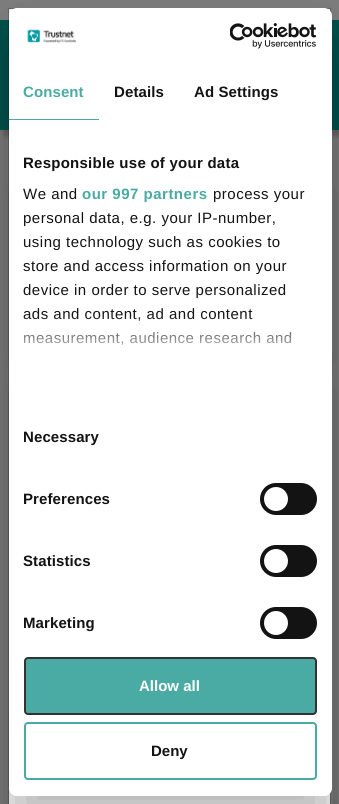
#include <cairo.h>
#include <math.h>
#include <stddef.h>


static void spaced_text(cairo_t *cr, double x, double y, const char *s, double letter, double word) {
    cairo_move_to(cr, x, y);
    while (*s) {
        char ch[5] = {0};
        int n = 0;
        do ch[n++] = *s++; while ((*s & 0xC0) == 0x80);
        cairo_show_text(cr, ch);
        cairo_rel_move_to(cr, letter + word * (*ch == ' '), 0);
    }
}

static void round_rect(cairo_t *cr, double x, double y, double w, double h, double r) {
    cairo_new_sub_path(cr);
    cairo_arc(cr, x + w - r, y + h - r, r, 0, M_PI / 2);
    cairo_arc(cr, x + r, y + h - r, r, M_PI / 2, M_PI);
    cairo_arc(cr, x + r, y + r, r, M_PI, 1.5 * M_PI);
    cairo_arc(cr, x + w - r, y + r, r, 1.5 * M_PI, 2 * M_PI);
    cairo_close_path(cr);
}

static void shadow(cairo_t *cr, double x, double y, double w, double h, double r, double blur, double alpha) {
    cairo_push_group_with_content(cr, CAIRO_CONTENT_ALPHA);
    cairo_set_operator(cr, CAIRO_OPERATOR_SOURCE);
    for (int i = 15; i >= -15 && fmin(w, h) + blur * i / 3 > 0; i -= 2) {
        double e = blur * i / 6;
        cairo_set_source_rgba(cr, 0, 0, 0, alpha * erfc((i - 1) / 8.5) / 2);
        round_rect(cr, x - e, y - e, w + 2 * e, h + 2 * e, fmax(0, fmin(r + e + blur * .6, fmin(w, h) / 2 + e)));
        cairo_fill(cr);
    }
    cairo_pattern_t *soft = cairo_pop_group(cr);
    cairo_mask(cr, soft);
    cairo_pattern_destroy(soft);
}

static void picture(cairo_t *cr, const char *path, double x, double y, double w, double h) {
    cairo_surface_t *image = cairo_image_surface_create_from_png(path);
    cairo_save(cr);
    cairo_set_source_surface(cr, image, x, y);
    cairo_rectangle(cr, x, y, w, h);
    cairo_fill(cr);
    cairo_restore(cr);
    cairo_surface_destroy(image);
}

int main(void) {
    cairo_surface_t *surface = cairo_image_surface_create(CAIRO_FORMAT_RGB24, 339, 804);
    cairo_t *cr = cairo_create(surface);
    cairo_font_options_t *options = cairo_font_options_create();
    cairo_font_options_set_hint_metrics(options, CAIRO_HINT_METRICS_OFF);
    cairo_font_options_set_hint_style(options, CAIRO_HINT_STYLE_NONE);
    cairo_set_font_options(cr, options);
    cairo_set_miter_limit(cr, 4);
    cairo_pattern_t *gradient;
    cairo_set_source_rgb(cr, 0.486, 0.486, 0.486);
    cairo_paint(cr);
    cairo_set_source_rgb(cr, 0.502, 0.502, 0.502);
    cairo_rectangle(cr, 0, 0, 339, 20);
    cairo_fill(cr);
    cairo_set_source_rgb(cr, 0, 0.322, 0.302);
    cairo_rectangle(cr, 0, 20, 339, 55);
    cairo_fill(cr);
    cairo_set_source_rgb(cr, 0, 0, 0);
    shadow(cr, 4, 81, 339, 55, 0, 2.5, 0.2);
    cairo_set_source_rgb(cr, 0, 0.322, 0.302);
    cairo_rectangle(cr, 0, 75, 339, 55);
    cairo_fill(cr);
    cairo_set_source_rgb(cr, 0, 0, 0);
    shadow(cr, 12, 190, 321, 172, 3, 4, 0.1);
    cairo_set_source_rgb(cr, 0.502, 0.502, 0.502);
    round_rect(cr, 12, 182, 321, 172, 3);
    cairo_fill(cr);
    cairo_set_source_rgb(cr, 0, 0, 0);
    shadow(cr, 12, 386, 321, 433, 3, 4, 0.1);
    cairo_set_source_rgb(cr, 0.502, 0.502, 0.502);
    round_rect(cr, 12, 378, 321, 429, 3);
    cairo_fill(cr);
    cairo_set_source_rgb(cr, 1, 1, 1);
    cairo_rectangle(cr, 9, 788, 321, 16);
    cairo_fill(cr);
    cairo_rectangle(cr, 8.5, 8.5, 322, 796);
    cairo_set_source_rgba(cr, 0, 0, 0, 0.2);
    cairo_set_line_width(cr, 1);
    cairo_stroke(cr);
    cairo_set_source_rgb(cr, 0.961, 0.961, 0.961);
    cairo_rectangle(cr, 9, 9, 321, 7);
    cairo_fill(cr);
    cairo_set_source_rgb(cr, 0, 0, 0);
    shadow(cr, 9, 40, 323, 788, 8, 34, 0.3);
    cairo_set_source_rgb(cr, 1, 1, 1);
    round_rect(cr, 9, 8, 323, 788, 8);
    cairo_fill(cr);
    picture(cr, "img1.png", 27, 29, 50, 15);
    picture(cr, "img2.png", 230, 23, 87, 26);
    cairo_set_source_rgb(cr, 0.286, 0.671, 0.639);
    cairo_rectangle(cr, 9, 119, 90, 1);
    cairo_fill(cr);
    cairo_select_font_face(cr, "Liberation Sans", CAIRO_FONT_SLANT_NORMAL, CAIRO_FONT_WEIGHT_BOLD);
    cairo_set_font_size(cr, 15);
    spaced_text(cr, 23, 97, "Consent", 0.1, 0);
    cairo_set_source_rgb(cr, 0.078, 0.078, 0.078);
    spaced_text(cr, 114, 97, "Details", 0.1, 0);
    spaced_text(cr, 194, 97, "Ad Settings", 0.1, 0);
    spaced_text(cr, 23, 168, "Responsible use of your data", 0.25, 0);
    cairo_select_font_face(cr, "Liberation Sans", CAIRO_FONT_SLANT_NORMAL, CAIRO_FONT_WEIGHT_NORMAL);
    spaced_text(cr, 23, 199, "We and", 0.5, 0);
    cairo_select_font_face(cr, "Liberation Sans", CAIRO_FONT_SLANT_NORMAL, CAIRO_FONT_WEIGHT_BOLD);
    cairo_set_source_rgb(cr, 0.286, 0.671, 0.639);
    spaced_text(cr, 82, 199, "our 997 partners", 0.5, 0);
    cairo_select_font_face(cr, "Liberation Sans", CAIRO_FONT_SLANT_NORMAL, CAIRO_FONT_WEIGHT_NORMAL);
    cairo_set_source_rgb(cr, 0.078, 0.078, 0.078);
    spaced_text(cr, 213, 199, "process your", 0.5, 0);
    spaced_text(cr, 23, 223, "personal data, e.g. your IP-number,", 0.5, 0);
    spaced_text(cr, 23, 247, "using technology such as cookies to", 0.5, 0);
    spaced_text(cr, 23, 271, "store and access information on your", 0.5, 0);
    spaced_text(cr, 23, 295, "device in order to serve personalized", 0.5, 0);
    spaced_text(cr, 23, 319, "ads and content, ad and content", 0.5, 0);
    spaced_text(cr, 23, 343, "measurement, audience research and", 0.5, 0);
    gradient = cairo_pattern_create_linear(164, 390, 164, 315);
    cairo_pattern_add_color_stop_rgba(gradient, 0, 1, 1, 1, 1);
    cairo_pattern_add_color_stop_rgba(gradient, 0.5, 1, 1, 1, 0.8);
    cairo_pattern_add_color_stop_rgba(gradient, 1, 1, 1, 1, 0);
    cairo_set_source(cr, gradient);
    cairo_pattern_destroy(gradient);
    cairo_rectangle(cr, 23, 316, 269, 29);
    cairo_fill(cr);
    cairo_select_font_face(cr, "Liberation Sans", CAIRO_FONT_SLANT_NORMAL, CAIRO_FONT_WEIGHT_BOLD);
    cairo_set_source_rgb(cr, 0.078, 0.078, 0.078);
    spaced_text(cr, 23, 442, "Necessary", 0.1, 0);
    spaced_text(cr, 23, 504, "Preferences", 0.1, 0);
    round_rect(cr, 260, 483, 57, 32, 16);
    cairo_fill(cr);
    cairo_set_source_rgb(cr, 1, 1, 1);
    cairo_arc(cr, 276, 499, 12, 0, 2 * M_PI);
    cairo_fill(cr);
    cairo_set_source_rgb(cr, 0.078, 0.078, 0.078);
    spaced_text(cr, 23, 566, "Statistics", 0.1, 0);
    round_rect(cr, 260, 545, 57, 32, 16);
    cairo_fill(cr);
    cairo_set_source_rgb(cr, 1, 1, 1);
    cairo_arc(cr, 276, 561, 12, 0, 2 * M_PI);
    cairo_fill(cr);
    cairo_set_source_rgb(cr, 0.078, 0.078, 0.078);
    spaced_text(cr, 23, 628, "Marketing", 0.1, 0);
    round_rect(cr, 260, 607, 57, 32, 16);
    cairo_fill(cr);
    cairo_set_source_rgb(cr, 1, 1, 1);
    cairo_arc(cr, 276, 623, 12, 0, 2 * M_PI);
    cairo_fill(cr);
    cairo_save(cr);
    round_rect(cr, 9, 8, 323, 788, 8);
    cairo_clip(cr);
    cairo_rectangle(cr, 9, 795, 323, 1);
    cairo_fill(cr);
    cairo_restore(cr);
    cairo_set_source_rgb(cr, 0.286, 0.671, 0.639);
    round_rect(cr, 25, 658, 291, 56, 3);
    cairo_fill_preserve(cr);
    cairo_set_source_rgb(cr, 0.2, 0.2, 0.2);
    cairo_set_line_width(cr, 2);
    cairo_stroke(cr);
    cairo_set_source_rgb(cr, 1, 1, 1);
    cairo_move_to(cr, 139, 691);
    cairo_show_text(cr, "Allow all");
    round_rect(cr, 25, 723, 291, 56, 3);
    cairo_set_source_rgb(cr, 0.286, 0.671, 0.639);
    cairo_stroke(cr);
    cairo_set_source_rgb(cr, 0.078, 0.078, 0.078);
    cairo_move_to(cr, 151, 756);
    cairo_show_text(cr, "Deny");
    cairo_surface_write_to_png(surface, "page.png");
    cairo_font_options_destroy(options);
    cairo_destroy(cr);
    cairo_surface_destroy(surface);
    return 0;
}
